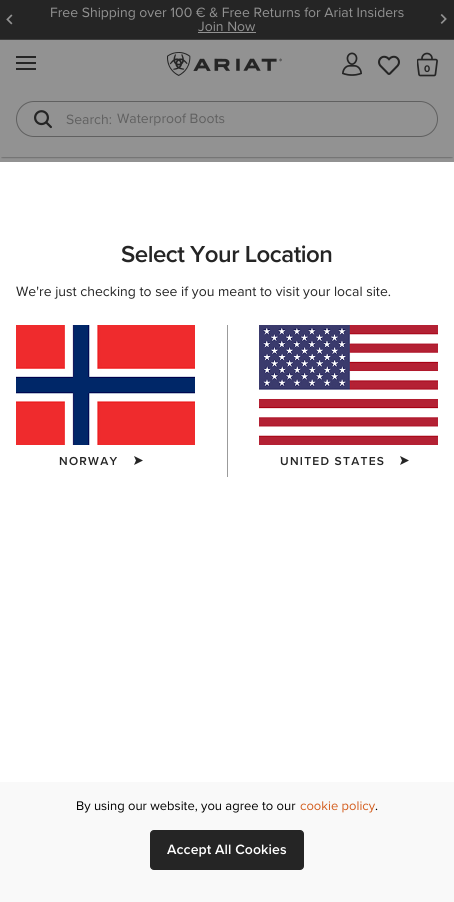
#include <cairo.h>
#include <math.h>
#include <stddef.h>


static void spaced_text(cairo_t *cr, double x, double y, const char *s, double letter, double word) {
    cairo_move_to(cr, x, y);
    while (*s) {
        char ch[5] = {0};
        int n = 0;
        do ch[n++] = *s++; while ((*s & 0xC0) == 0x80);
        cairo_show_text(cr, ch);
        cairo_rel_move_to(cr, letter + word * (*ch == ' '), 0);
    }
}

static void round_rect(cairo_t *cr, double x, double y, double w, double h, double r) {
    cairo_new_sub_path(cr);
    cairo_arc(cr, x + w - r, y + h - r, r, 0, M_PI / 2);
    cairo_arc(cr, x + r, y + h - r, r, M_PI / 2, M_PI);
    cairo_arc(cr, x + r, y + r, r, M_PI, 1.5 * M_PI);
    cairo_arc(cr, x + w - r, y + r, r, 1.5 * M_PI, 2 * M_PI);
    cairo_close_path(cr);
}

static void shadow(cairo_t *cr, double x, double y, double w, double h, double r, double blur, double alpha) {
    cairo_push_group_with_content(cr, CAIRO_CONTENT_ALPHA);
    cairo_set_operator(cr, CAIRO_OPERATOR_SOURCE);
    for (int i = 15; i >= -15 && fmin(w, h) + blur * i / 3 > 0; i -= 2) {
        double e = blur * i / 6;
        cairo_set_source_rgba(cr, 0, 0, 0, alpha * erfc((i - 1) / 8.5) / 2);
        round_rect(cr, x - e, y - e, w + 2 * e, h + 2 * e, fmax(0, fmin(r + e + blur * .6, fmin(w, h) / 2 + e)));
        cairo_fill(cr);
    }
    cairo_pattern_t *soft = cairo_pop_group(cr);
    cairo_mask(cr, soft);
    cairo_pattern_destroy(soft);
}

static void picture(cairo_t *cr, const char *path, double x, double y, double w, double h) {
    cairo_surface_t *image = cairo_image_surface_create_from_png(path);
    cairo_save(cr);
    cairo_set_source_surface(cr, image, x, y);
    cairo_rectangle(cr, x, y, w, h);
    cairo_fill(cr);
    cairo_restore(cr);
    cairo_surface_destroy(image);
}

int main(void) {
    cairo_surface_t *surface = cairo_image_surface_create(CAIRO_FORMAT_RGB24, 454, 902);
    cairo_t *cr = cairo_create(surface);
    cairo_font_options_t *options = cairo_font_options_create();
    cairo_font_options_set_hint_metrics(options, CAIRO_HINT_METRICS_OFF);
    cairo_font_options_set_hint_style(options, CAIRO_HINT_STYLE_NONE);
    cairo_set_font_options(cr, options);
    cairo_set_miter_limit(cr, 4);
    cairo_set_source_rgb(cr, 0.573, 0.573, 0.573);
    cairo_paint(cr);
    cairo_save(cr);
    cairo_rectangle(cr, 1, 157, 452, 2);
    cairo_clip(cr);
    cairo_set_source_rgb(cr, 0.075, 0.075, 0.075);
    shadow(cr, 2, 4, 450, 153, 0, 1, 0.65);
    cairo_restore(cr);
    cairo_set_source_rgb(cr, 0.145, 0.145, 0.145);
    cairo_rectangle(cr, 0, 0, 454, 39);
    cairo_fill(cr);
    cairo_set_source_rgb(cr, 0.239, 0.239, 0.239);
    cairo_rectangle(cr, 0, 39, 454, 1);
    cairo_fill(cr);
    picture(cr, "img1.png", 6, 14, 7, 11);
    cairo_select_font_face(cr, "Proxima Nova", CAIRO_FONT_SLANT_NORMAL, CAIRO_FONT_WEIGHT_NORMAL);
    cairo_set_font_size(cr, 14);
    cairo_set_source_rgb(cr, 0.573, 0.573, 0.573);
    cairo_move_to(cr, 50, 17);
    cairo_show_text(cr, "Free Shipping over 100 € & Free Returns for Ariat Insiders");
    cairo_move_to(cr, 198, 31);
    cairo_show_text(cr, "Join Now");
    cairo_rectangle(cr, 198, 32, 58, 1);
    cairo_fill(cr);
    picture(cr, "img2.png", 440, 14, 7, 10);
    cairo_set_source_rgb(cr, 0.145, 0.145, 0.145);
    cairo_rectangle(cr, 16, 56, 20, 2);
    cairo_fill(cr);
    cairo_rectangle(cr, 16, 62, 20, 2);
    cairo_fill(cr);
    cairo_rectangle(cr, 16, 68, 20, 2);
    cairo_fill(cr);
    picture(cr, "img3.png", 167, 52, 115, 24);
    picture(cr, "img4.png", 342, 52, 20, 24);
    picture(cr, "img5.png", 378, 55, 22, 20);
    picture(cr, "img6.png", 417, 52, 21, 25);
    cairo_select_font_face(cr, "Proxima Nova", CAIRO_FONT_SLANT_NORMAL, CAIRO_FONT_WEIGHT_BOLD);
    cairo_set_font_size(cr, 10);
    spaced_text(cr, 424, 72, "0", 1, 0);
    round_rect(cr, 16.5, 101.5, 421, 35, 17.5);
    cairo_set_source_rgb(cr, 0.376, 0.376, 0.376);
    cairo_set_line_width(cr, 1);
    cairo_stroke(cr);
    picture(cr, "img7.png", 34, 110, 18, 19);
    cairo_select_font_face(cr, "Proxima Nova", CAIRO_FONT_SLANT_NORMAL, CAIRO_FONT_WEIGHT_NORMAL);
    cairo_set_font_size(cr, 14);
    cairo_move_to(cr, 66, 124);
    cairo_show_text(cr, "Search:");
    cairo_move_to(cr, 117, 123);
    cairo_show_text(cr, "Waterproof Boots");
    cairo_set_source_rgb(cr, 1, 1, 1);
    cairo_rectangle(cr, 0, 162, 454, 620);
    cairo_fill(cr);
    cairo_select_font_face(cr, "Proxima Nova SemiBold", CAIRO_FONT_SLANT_NORMAL, CAIRO_FONT_WEIGHT_NORMAL);
    cairo_set_font_size(cr, 24);
    cairo_set_source_rgb(cr, 0.145, 0.145, 0.145);
    spaced_text(cr, 121, 262, "Select Your Location", -0.5, 0);
    cairo_select_font_face(cr, "Proxima Nova", CAIRO_FONT_SLANT_NORMAL, CAIRO_FONT_WEIGHT_NORMAL);
    cairo_set_font_size(cr, 14);
    cairo_move_to(cr, 16, 296);
    cairo_show_text(cr, "We're just checking to see if you meant to visit your local site.");
    picture(cr, "img8.png", 16, 325, 179, 120);
    cairo_select_font_face(cr, "Proxima Nova SemiBold", CAIRO_FONT_SLANT_NORMAL, CAIRO_FONT_WEIGHT_NORMAL);
    cairo_set_font_size(cr, 12);
    spaced_text(cr, 59, 465, "NORWAY", 1.25, 0);
    cairo_new_path(cr);
    cairo_move_to(cr, 143, 460.5);
    cairo_line_to(cr, 134, 465);
    cairo_line_to(cr, 136, 460.5);
    cairo_line_to(cr, 134, 456);
    cairo_close_path(cr);
    cairo_fill(cr);
    cairo_set_source_rgb(cr, 0.608, 0.608, 0.608);
    cairo_rectangle(cr, 227, 325, 1, 152);
    cairo_fill(cr);
    picture(cr, "img9.png", 259, 325, 179, 120);
    cairo_set_source_rgb(cr, 0.145, 0.145, 0.145);
    spaced_text(cr, 280, 465, "UNITED STATES", 1.25, 0);
    cairo_new_path(cr);
    cairo_move_to(cr, 409, 460.5);
    cairo_line_to(cr, 400, 465);
    cairo_line_to(cr, 402, 460.5);
    cairo_line_to(cr, 400, 456);
    cairo_close_path(cr);
    cairo_fill(cr);
    cairo_set_source_rgb(cr, 0.973, 0.973, 0.973);
    cairo_rectangle(cr, 0, 782, 454, 120);
    cairo_fill(cr);
    cairo_select_font_face(cr, "Proxima Nova", CAIRO_FONT_SLANT_NORMAL, CAIRO_FONT_WEIGHT_NORMAL);
    cairo_set_font_size(cr, 13);
    cairo_set_source_rgb(cr, 0, 0, 0);
    cairo_move_to(cr, 76, 810);
    cairo_show_text(cr, "By using our website, you agree to our");
    cairo_set_source_rgb(cr, 0.827, 0.361, 0.11);
    cairo_move_to(cr, 300, 810);
    cairo_show_text(cr, "cookie policy");
    cairo_set_source_rgb(cr, 0, 0, 0);
    cairo_move_to(cr, 375, 810);
    cairo_show_text(cr, ".");
    cairo_set_source_rgb(cr, 0.145, 0.145, 0.145);
    round_rect(cr, 150.5, 830.5, 153, 39, 3.5);
    cairo_fill_preserve(cr);
    cairo_stroke(cr);
    cairo_select_font_face(cr, "Proxima Nova SemiBold", CAIRO_FONT_SLANT_NORMAL, CAIRO_FONT_WEIGHT_NORMAL);
    cairo_set_font_size(cr, 14);
    cairo_set_source_rgb(cr, 1, 1, 1);
    spaced_text(cr, 167, 854, "Accept All Cookies", 0.1, 0);
    cairo_surface_write_to_png(surface, "page.png");
    cairo_font_options_destroy(options);
    cairo_destroy(cr);
    cairo_surface_destroy(surface);
    return 0;
}
